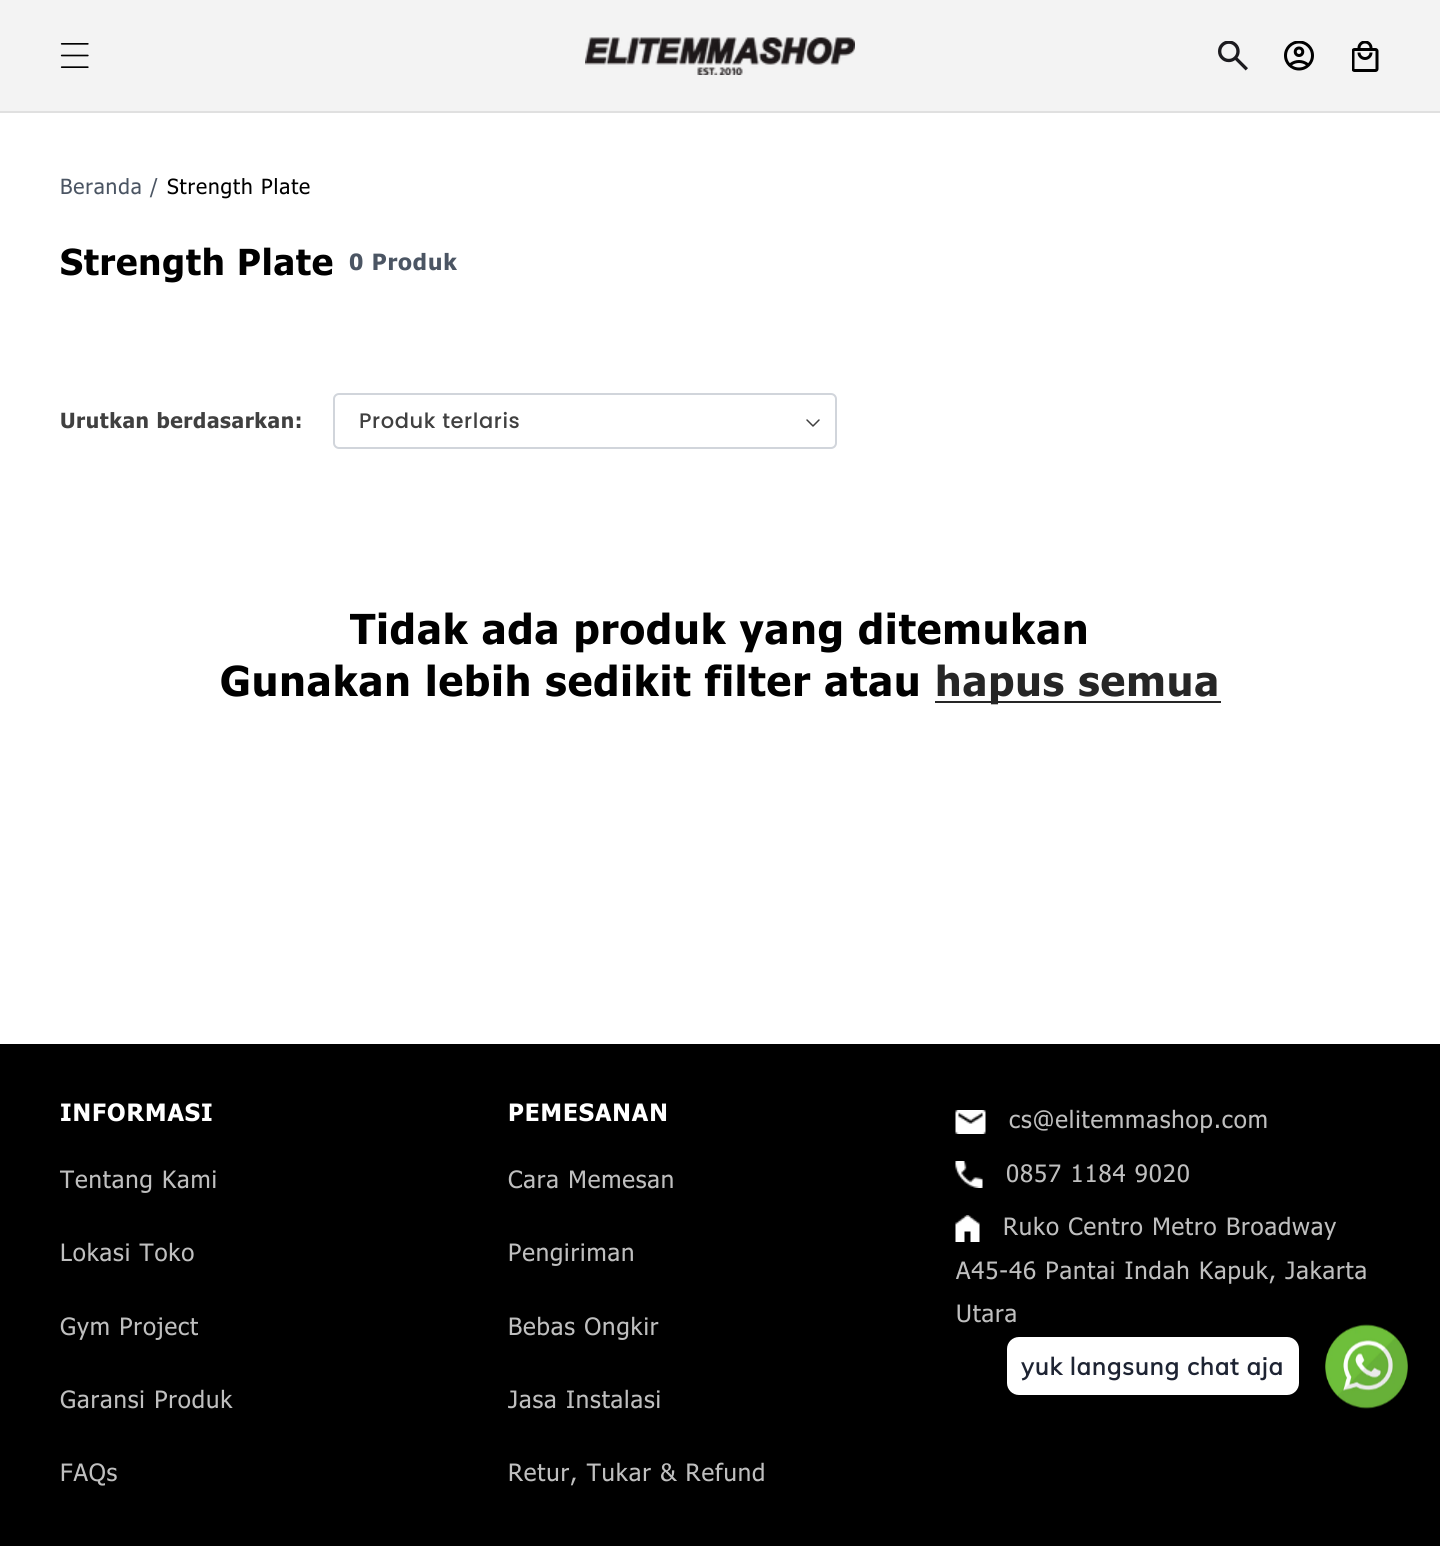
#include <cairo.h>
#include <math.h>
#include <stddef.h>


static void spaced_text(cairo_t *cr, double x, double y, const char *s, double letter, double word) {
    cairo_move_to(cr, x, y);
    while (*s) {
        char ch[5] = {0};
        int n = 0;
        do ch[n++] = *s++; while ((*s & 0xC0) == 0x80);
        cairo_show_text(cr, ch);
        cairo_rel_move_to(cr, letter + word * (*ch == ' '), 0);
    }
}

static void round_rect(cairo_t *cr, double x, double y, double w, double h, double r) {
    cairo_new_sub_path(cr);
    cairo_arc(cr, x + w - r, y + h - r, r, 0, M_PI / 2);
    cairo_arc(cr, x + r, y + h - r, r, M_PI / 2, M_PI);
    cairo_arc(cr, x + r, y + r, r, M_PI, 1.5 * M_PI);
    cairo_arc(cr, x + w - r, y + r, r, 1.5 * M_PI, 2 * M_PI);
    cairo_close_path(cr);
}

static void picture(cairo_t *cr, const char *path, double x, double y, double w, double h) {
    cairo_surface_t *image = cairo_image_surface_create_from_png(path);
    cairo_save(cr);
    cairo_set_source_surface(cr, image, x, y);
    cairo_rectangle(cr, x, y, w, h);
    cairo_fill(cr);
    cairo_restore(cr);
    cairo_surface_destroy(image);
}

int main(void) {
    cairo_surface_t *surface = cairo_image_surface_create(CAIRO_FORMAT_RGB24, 1440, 1546);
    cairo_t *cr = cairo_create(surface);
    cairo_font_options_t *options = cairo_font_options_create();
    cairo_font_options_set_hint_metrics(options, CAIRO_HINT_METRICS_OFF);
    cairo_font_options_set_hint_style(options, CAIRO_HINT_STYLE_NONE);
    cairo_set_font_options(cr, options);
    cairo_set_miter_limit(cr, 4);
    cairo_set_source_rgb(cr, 1, 1, 1);
    cairo_paint(cr);
    cairo_set_source_rgb(cr, 0.953, 0.953, 0.953);
    cairo_rectangle(cr, 0, 0, 1440, 111);
    cairo_fill(cr);
    cairo_set_source_rgb(cr, 0.878, 0.878, 0.878);
    cairo_rectangle(cr, 0, 111, 1440, 2);
    cairo_fill(cr);
    picture(cr, "img1.png", 60, 43, 29, 25);
    picture(cr, "img2.png", 585, 37, 270, 38);
    picture(cr, "img3.png", 1218, 41, 30, 30);
    picture(cr, "img4.png", 1284, 41, 30, 30);
    picture(cr, "img5.png", 1352, 41, 27, 31);
    cairo_select_font_face(cr, "Tahoma", CAIRO_FONT_SLANT_NORMAL, CAIRO_FONT_WEIGHT_NORMAL);
    cairo_set_font_size(cr, 21);
    cairo_set_source_rgb(cr, 0.294, 0.333, 0.388);
    spaced_text(cr, 60, 194, "Beranda /", 0.9, 0);
    cairo_set_source_rgb(cr, 0, 0, 0);
    spaced_text(cr, 167, 194, "Strength Plate", 0.9, 0);
    cairo_select_font_face(cr, "Tahoma", CAIRO_FONT_SLANT_NORMAL, CAIRO_FONT_WEIGHT_BOLD);
    cairo_set_font_size(cr, 36);
    spaced_text(cr, 60, 275, "Strength Plate", 0.9, 0);
    cairo_set_font_size(cr, 22.5);
    cairo_set_source_rgb(cr, 0.294, 0.333, 0.388);
    spaced_text(cr, 349, 270, "0 Produk", 0.9, 0);
    cairo_set_font_size(cr, 21);
    cairo_set_source_rgb(cr, 0.251, 0.251, 0.251);
    spaced_text(cr, 60, 428, "Urutkan berdasarkan:", 0.6, 0);
    round_rect(cr, 334, 394, 502, 54, 5);
    cairo_set_source_rgb(cr, 0.82, 0.835, 0.859);
    cairo_stroke(cr);
    cairo_select_font_face(cr, "Poppins Medium", CAIRO_FONT_SLANT_NORMAL, CAIRO_FONT_WEIGHT_NORMAL);
    cairo_set_source_rgb(cr, 0.251, 0.251, 0.251);
    spaced_text(cr, 359, 428, "Produk terlaris", 0.6, 0);
    picture(cr, "img6.png", 806, 419, 14, 8);
    cairo_select_font_face(cr, "Tahoma", CAIRO_FONT_SLANT_NORMAL, CAIRO_FONT_WEIGHT_BOLD);
    cairo_set_font_size(cr, 41.4);
    cairo_set_source_rgb(cr, 0, 0, 0);
    spaced_text(cr, 350, 644, "Tidak ada produk yang ditemukan", 1, 0);
    spaced_text(cr, 220, 696, "Gunakan lebih sedikit filter atau", 1, 0);
    cairo_set_source_rgb(cr, 0.149, 0.149, 0.149);
    cairo_rectangle(cr, 935, 701, 286, 2);
    cairo_fill(cr);
    spaced_text(cr, 935, 696, "hapus semua", 1, 0);
    cairo_set_source_rgb(cr, 0, 0, 0);
    cairo_rectangle(cr, 0, 1044, 1440, 502);
    cairo_fill(cr);
    cairo_set_font_size(cr, 24);
    cairo_set_source_rgb(cr, 1, 1, 1);
    spaced_text(cr, 60, 1121, "INFORMASI", 1, 0);
    cairo_select_font_face(cr, "Tahoma", CAIRO_FONT_SLANT_NORMAL, CAIRO_FONT_WEIGHT_NORMAL);
    cairo_set_source_rgb(cr, 0.749, 0.749, 0.749);
    spaced_text(cr, 60, 1188, "Tentang Kami", 0.9, 0);
    spaced_text(cr, 60, 1261, "Lokasi Toko", 0.9, 0);
    spaced_text(cr, 60, 1335, "Gym Project", 0.9, 0);
    spaced_text(cr, 60, 1408, "Garansi Produk", 0.9, 0);
    spaced_text(cr, 60, 1481, "FAQs", 0.9, 0);
    cairo_select_font_face(cr, "Tahoma", CAIRO_FONT_SLANT_NORMAL, CAIRO_FONT_WEIGHT_BOLD);
    cairo_set_source_rgb(cr, 1, 1, 1);
    spaced_text(cr, 508, 1121, "PEMESANAN", 1, 0);
    cairo_select_font_face(cr, "Tahoma", CAIRO_FONT_SLANT_NORMAL, CAIRO_FONT_WEIGHT_NORMAL);
    cairo_set_source_rgb(cr, 0.749, 0.749, 0.749);
    spaced_text(cr, 508, 1188, "Cara Memesan", 0.9, 0);
    spaced_text(cr, 508, 1261, "Pengiriman", 0.9, 0);
    spaced_text(cr, 508, 1335, "Bebas Ongkir", 0.9, 0);
    spaced_text(cr, 508, 1408, "Jasa Instalasi", 0.9, 0);
    spaced_text(cr, 508, 1481, "Retur, Tukar & Refund", 0.9, 0);
    picture(cr, "img7.png", 955, 1110, 31, 24);
    spaced_text(cr, 1009, 1128, "cs@elitemmashop.com", 0.9, 0);
    picture(cr, "img8.png", 955, 1161, 28, 27);
    spaced_text(cr, 1006, 1182, "0857 1184 9020", 0.9, 0);
    picture(cr, "img9.png", 955, 1215, 25, 27);
    spaced_text(cr, 1003, 1235, "Ruko Centro Metro Broadway", 0.9, 0);
    spaced_text(cr, 956, 1279, "A45-46 Pantai Indah Kapuk, Jakarta", 0.9, 0);
    spaced_text(cr, 956, 1322, "Utara", 0.9, 0);
    picture(cr, "img10.png", 1325, 1324, 83, 85);
    cairo_set_source_rgb(cr, 1, 1, 1);
    round_rect(cr, 1007, 1337, 292, 58, 12);
    cairo_fill(cr);
    cairo_select_font_face(cr, "Muli", CAIRO_FONT_SLANT_NORMAL, CAIRO_FONT_WEIGHT_BOLD);
    cairo_set_source_rgb(cr, 0.118, 0.141, 0.2);
    spaced_text(cr, 1021, 1375, "yuk langsung chat aja", 0.9, 0);
    cairo_surface_write_to_png(surface, "page.png");
    cairo_font_options_destroy(options);
    cairo_destroy(cr);
    cairo_surface_destroy(surface);
    return 0;
}
